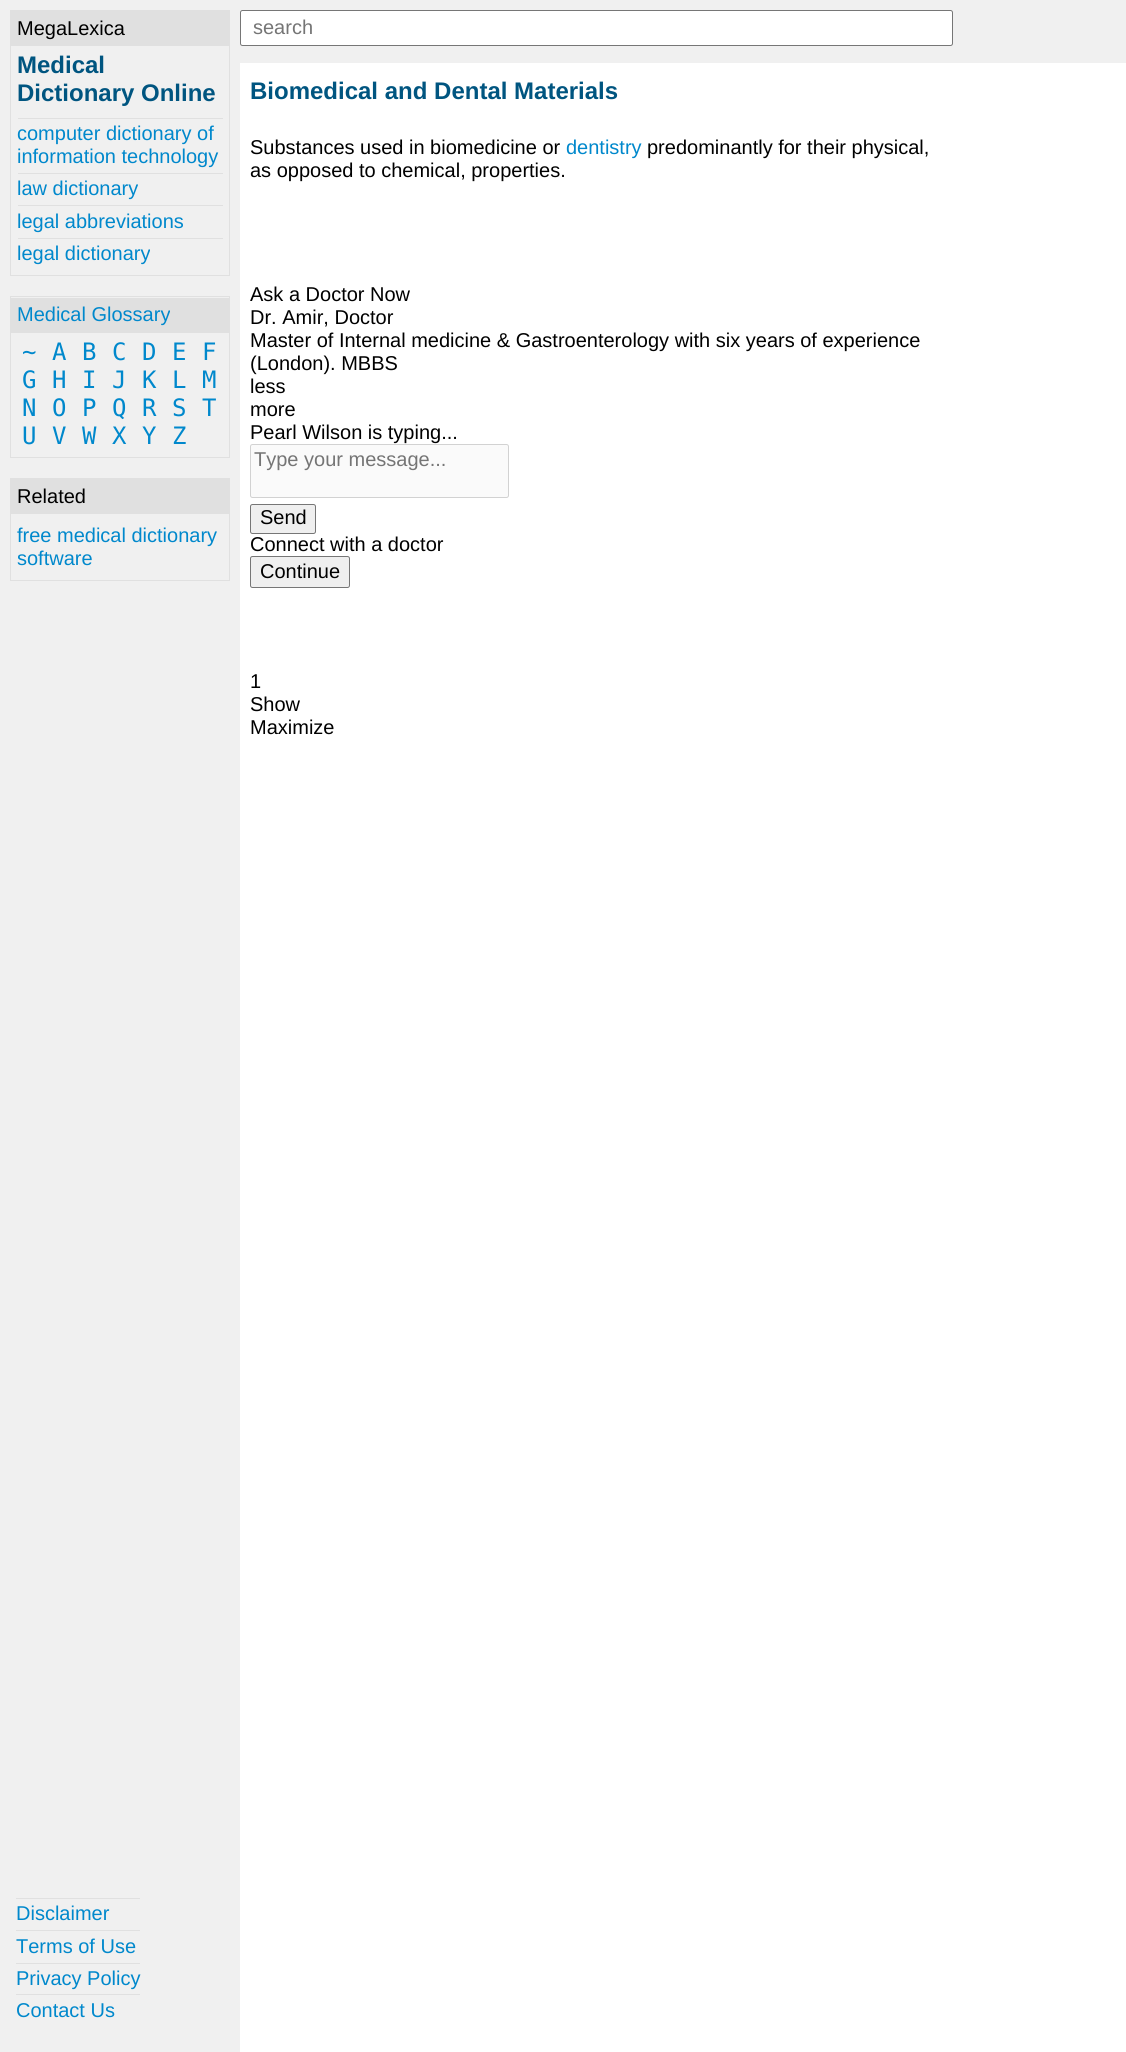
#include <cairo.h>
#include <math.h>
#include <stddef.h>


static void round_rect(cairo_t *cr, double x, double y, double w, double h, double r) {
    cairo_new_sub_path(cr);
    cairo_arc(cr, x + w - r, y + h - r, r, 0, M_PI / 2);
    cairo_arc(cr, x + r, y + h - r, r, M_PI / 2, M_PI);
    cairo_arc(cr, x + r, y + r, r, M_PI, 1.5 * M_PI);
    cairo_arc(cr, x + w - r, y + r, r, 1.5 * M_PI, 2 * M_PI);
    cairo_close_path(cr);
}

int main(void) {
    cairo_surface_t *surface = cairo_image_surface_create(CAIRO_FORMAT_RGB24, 1126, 2052);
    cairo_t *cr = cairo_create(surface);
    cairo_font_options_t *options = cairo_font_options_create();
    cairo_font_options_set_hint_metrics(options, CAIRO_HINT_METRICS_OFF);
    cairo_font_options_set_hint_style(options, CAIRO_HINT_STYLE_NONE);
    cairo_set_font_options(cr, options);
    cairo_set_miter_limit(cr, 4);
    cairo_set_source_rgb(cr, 1, 1, 1);
    cairo_paint(cr);
    cairo_set_source_rgb(cr, 0.941, 0.941, 0.941);
    cairo_rectangle(cr, 0, 0, 240, 2052);
    cairo_fill(cr);
    cairo_rectangle(cr, 10.5, 10.5, 219, 265);
    cairo_set_source_rgb(cr, 0.878, 0.878, 0.878);
    cairo_set_line_width(cr, 1);
    cairo_stroke(cr);
    cairo_rectangle(cr, 11, 11, 218, 35);
    cairo_fill(cr);
    cairo_select_font_face(cr, "Liberation Sans", CAIRO_FONT_SLANT_NORMAL, CAIRO_FONT_WEIGHT_NORMAL);
    cairo_set_font_size(cr, 20);
    cairo_set_source_rgb(cr, 0, 0, 0);
    cairo_move_to(cr, 17, 35);
    cairo_show_text(cr, "MegaLexica");
    cairo_select_font_face(cr, "Liberation Sans", CAIRO_FONT_SLANT_NORMAL, CAIRO_FONT_WEIGHT_BOLD);
    cairo_set_font_size(cr, 24);
    cairo_set_source_rgb(cr, 0, 0.333, 0.502);
    cairo_move_to(cr, 17, 73);
    cairo_show_text(cr, "Medical");
    cairo_move_to(cr, 17, 101);
    cairo_show_text(cr, "Dictionary Online");
    cairo_set_source_rgb(cr, 0.878, 0.878, 0.878);
    cairo_rectangle(cr, 18, 118, 205, 1);
    cairo_fill(cr);
    cairo_select_font_face(cr, "Liberation Sans", CAIRO_FONT_SLANT_NORMAL, CAIRO_FONT_WEIGHT_NORMAL);
    cairo_set_font_size(cr, 20);
    cairo_set_source_rgb(cr, 0, 0.533, 0.8);
    cairo_move_to(cr, 17, 140);
    cairo_show_text(cr, "computer dictionary of");
    cairo_move_to(cr, 17, 163);
    cairo_show_text(cr, "information technology");
    cairo_set_source_rgb(cr, 0.878, 0.878, 0.878);
    cairo_rectangle(cr, 18, 173, 205, 1);
    cairo_fill(cr);
    cairo_set_source_rgb(cr, 0, 0.533, 0.8);
    cairo_move_to(cr, 17, 195);
    cairo_show_text(cr, "law dictionary");
    cairo_set_source_rgb(cr, 0.878, 0.878, 0.878);
    cairo_rectangle(cr, 18, 205, 205, 1);
    cairo_fill(cr);
    cairo_set_source_rgb(cr, 0, 0.533, 0.8);
    cairo_move_to(cr, 17, 228);
    cairo_show_text(cr, "legal abbreviations");
    cairo_set_source_rgb(cr, 0.878, 0.878, 0.878);
    cairo_rectangle(cr, 18, 238, 205, 1);
    cairo_fill(cr);
    cairo_set_source_rgb(cr, 0, 0.533, 0.8);
    cairo_move_to(cr, 17, 260);
    cairo_show_text(cr, "legal dictionary");
    cairo_rectangle(cr, 10.5, 296.5, 219, 161);
    cairo_set_source_rgb(cr, 0.878, 0.878, 0.878);
    cairo_stroke(cr);
    cairo_rectangle(cr, 11, 298, 218, 35);
    cairo_fill(cr);
    cairo_set_source_rgb(cr, 0, 0.533, 0.8);
    cairo_move_to(cr, 17, 321);
    cairo_show_text(cr, "Medical Glossary");
    cairo_select_font_face(cr, "DejaVu Sans Mono", CAIRO_FONT_SLANT_NORMAL, CAIRO_FONT_WEIGHT_NORMAL);
    cairo_set_font_size(cr, 24);
    cairo_move_to(cr, 22, 360);
    cairo_show_text(cr, "~");
    cairo_move_to(cr, 52, 360);
    cairo_show_text(cr, "A");
    cairo_move_to(cr, 82, 360);
    cairo_show_text(cr, "B");
    cairo_move_to(cr, 112, 360);
    cairo_show_text(cr, "C");
    cairo_move_to(cr, 142, 360);
    cairo_show_text(cr, "D");
    cairo_move_to(cr, 172, 360);
    cairo_show_text(cr, "E");
    cairo_move_to(cr, 202, 360);
    cairo_show_text(cr, "F");
    cairo_move_to(cr, 22, 388);
    cairo_show_text(cr, "G");
    cairo_move_to(cr, 52, 388);
    cairo_show_text(cr, "H");
    cairo_move_to(cr, 82, 388);
    cairo_show_text(cr, "I");
    cairo_move_to(cr, 112, 388);
    cairo_show_text(cr, "J");
    cairo_move_to(cr, 142, 388);
    cairo_show_text(cr, "K");
    cairo_move_to(cr, 172, 388);
    cairo_show_text(cr, "L");
    cairo_move_to(cr, 202, 388);
    cairo_show_text(cr, "M");
    cairo_move_to(cr, 22, 416);
    cairo_show_text(cr, "N");
    cairo_move_to(cr, 52, 416);
    cairo_show_text(cr, "O");
    cairo_move_to(cr, 82, 416);
    cairo_show_text(cr, "P");
    cairo_move_to(cr, 112, 416);
    cairo_show_text(cr, "Q");
    cairo_move_to(cr, 142, 416);
    cairo_show_text(cr, "R");
    cairo_move_to(cr, 172, 416);
    cairo_show_text(cr, "S");
    cairo_move_to(cr, 202, 416);
    cairo_show_text(cr, "T");
    cairo_move_to(cr, 22, 444);
    cairo_show_text(cr, "U");
    cairo_move_to(cr, 52, 444);
    cairo_show_text(cr, "V");
    cairo_move_to(cr, 82, 444);
    cairo_show_text(cr, "W");
    cairo_move_to(cr, 112, 444);
    cairo_show_text(cr, "X");
    cairo_move_to(cr, 142, 444);
    cairo_show_text(cr, "Y");
    cairo_move_to(cr, 172, 444);
    cairo_show_text(cr, "Z");
    cairo_rectangle(cr, 10.5, 478.5, 219, 102);
    cairo_set_source_rgb(cr, 0.878, 0.878, 0.878);
    cairo_stroke(cr);
    cairo_rectangle(cr, 11, 479, 218, 35);
    cairo_fill(cr);
    cairo_select_font_face(cr, "Liberation Sans", CAIRO_FONT_SLANT_NORMAL, CAIRO_FONT_WEIGHT_NORMAL);
    cairo_set_font_size(cr, 20);
    cairo_set_source_rgb(cr, 0, 0, 0);
    cairo_move_to(cr, 17, 503);
    cairo_show_text(cr, "Related");
    cairo_set_source_rgb(cr, 0, 0.533, 0.8);
    cairo_move_to(cr, 17, 542);
    cairo_show_text(cr, "free medical dictionary");
    cairo_move_to(cr, 17, 565);
    cairo_show_text(cr, "software");
    cairo_set_source_rgb(cr, 0.878, 0.878, 0.878);
    cairo_rectangle(cr, 16, 1898, 124, 1);
    cairo_fill(cr);
    cairo_set_source_rgb(cr, 0, 0.533, 0.8);
    cairo_move_to(cr, 16, 1920);
    cairo_show_text(cr, "Disclaimer");
    cairo_set_source_rgb(cr, 0.878, 0.878, 0.878);
    cairo_rectangle(cr, 16, 1930, 124, 1);
    cairo_fill(cr);
    cairo_set_source_rgb(cr, 0, 0.533, 0.8);
    cairo_move_to(cr, 16, 1953);
    cairo_show_text(cr, "Terms of Use");
    cairo_set_source_rgb(cr, 0.878, 0.878, 0.878);
    cairo_rectangle(cr, 16, 1963, 124, 1);
    cairo_fill(cr);
    cairo_set_source_rgb(cr, 0, 0.533, 0.8);
    cairo_move_to(cr, 16, 1985);
    cairo_show_text(cr, "Privacy Policy");
    cairo_set_source_rgb(cr, 0.878, 0.878, 0.878);
    cairo_rectangle(cr, 16, 1994, 124, 1);
    cairo_fill(cr);
    cairo_set_source_rgb(cr, 0, 0.533, 0.8);
    cairo_move_to(cr, 16, 2017);
    cairo_show_text(cr, "Contact Us");
    cairo_set_source_rgb(cr, 0.941, 0.941, 0.941);
    cairo_rectangle(cr, 240, 0, 886, 63);
    cairo_fill(cr);
    cairo_set_source_rgb(cr, 1, 1, 1);
    round_rect(cr, 240.5, 10.5, 712, 35, 2);
    cairo_fill_preserve(cr);
    cairo_set_source_rgb(cr, 0.463, 0.463, 0.463);
    cairo_stroke(cr);
    cairo_set_source_rgb(cr, 0.459, 0.459, 0.459);
    cairo_move_to(cr, 253, 34);
    cairo_show_text(cr, "search");
    cairo_select_font_face(cr, "Liberation Sans", CAIRO_FONT_SLANT_NORMAL, CAIRO_FONT_WEIGHT_BOLD);
    cairo_set_font_size(cr, 24);
    cairo_set_source_rgb(cr, 0, 0.333, 0.502);
    cairo_move_to(cr, 250, 99);
    cairo_show_text(cr, "Biomedical and Dental Materials");
    cairo_select_font_face(cr, "Liberation Sans", CAIRO_FONT_SLANT_NORMAL, CAIRO_FONT_WEIGHT_NORMAL);
    cairo_set_font_size(cr, 20);
    cairo_set_source_rgb(cr, 0, 0, 0);
    cairo_move_to(cr, 250, 154);
    cairo_show_text(cr, "Substances used in biomedicine or");
    cairo_set_source_rgb(cr, 0, 0.533, 0.8);
    cairo_move_to(cr, 566, 154);
    cairo_show_text(cr, "dentistry");
    cairo_set_source_rgb(cr, 0, 0, 0);
    cairo_move_to(cr, 647, 154);
    cairo_show_text(cr, "predominantly for their physical,");
    cairo_move_to(cr, 250, 177);
    cairo_show_text(cr, "as opposed to chemical, properties.");
    cairo_move_to(cr, 250, 301);
    cairo_show_text(cr, "Ask a Doctor Now");
    cairo_move_to(cr, 250, 324);
    cairo_show_text(cr, "Dr. Amir, Doctor");
    cairo_move_to(cr, 250, 347);
    cairo_show_text(cr, "Master of Internal medicine & Gastroenterology with six years of experience");
    cairo_move_to(cr, 250, 370);
    cairo_show_text(cr, "(London). MBBS");
    cairo_move_to(cr, 250, 393);
    cairo_show_text(cr, "less");
    cairo_move_to(cr, 250, 416);
    cairo_show_text(cr, "more");
    cairo_move_to(cr, 250, 439);
    cairo_show_text(cr, "Pearl Wilson is typing...");
    cairo_set_source_rgb(cr, 0.98, 0.98, 0.98);
    round_rect(cr, 250.5, 444.5, 258, 53, 2);
    cairo_fill_preserve(cr);
    cairo_set_source_rgb(cr, 0.824, 0.824, 0.824);
    cairo_stroke(cr);
    cairo_set_source_rgb(cr, 0.459, 0.459, 0.459);
    cairo_move_to(cr, 254, 466);
    cairo_show_text(cr, "Type your message...");
    cairo_set_source_rgb(cr, 0.937, 0.937, 0.937);
    round_rect(cr, 250.5, 504.5, 65, 29, 2);
    cairo_fill_preserve(cr);
    cairo_set_source_rgb(cr, 0.463, 0.463, 0.463);
    cairo_stroke(cr);
    cairo_set_source_rgb(cr, 0, 0, 0);
    cairo_move_to(cr, 260, 524);
    cairo_show_text(cr, "Send");
    cairo_move_to(cr, 250, 551);
    cairo_show_text(cr, "Connect with a doctor");
    cairo_set_source_rgb(cr, 0.937, 0.937, 0.937);
    round_rect(cr, 250.5, 556.5, 99, 31, 2);
    cairo_fill_preserve(cr);
    cairo_set_source_rgb(cr, 0.463, 0.463, 0.463);
    cairo_stroke(cr);
    cairo_set_source_rgb(cr, 0, 0, 0);
    cairo_move_to(cr, 260, 578);
    cairo_show_text(cr, "Continue");
    cairo_move_to(cr, 250, 688);
    cairo_show_text(cr, "1");
    cairo_move_to(cr, 250, 711);
    cairo_show_text(cr, "Show");
    cairo_move_to(cr, 250, 734);
    cairo_show_text(cr, "Maximize");
    cairo_surface_write_to_png(surface, "page.png");
    cairo_font_options_destroy(options);
    cairo_destroy(cr);
    cairo_surface_destroy(surface);
    return 0;
}
